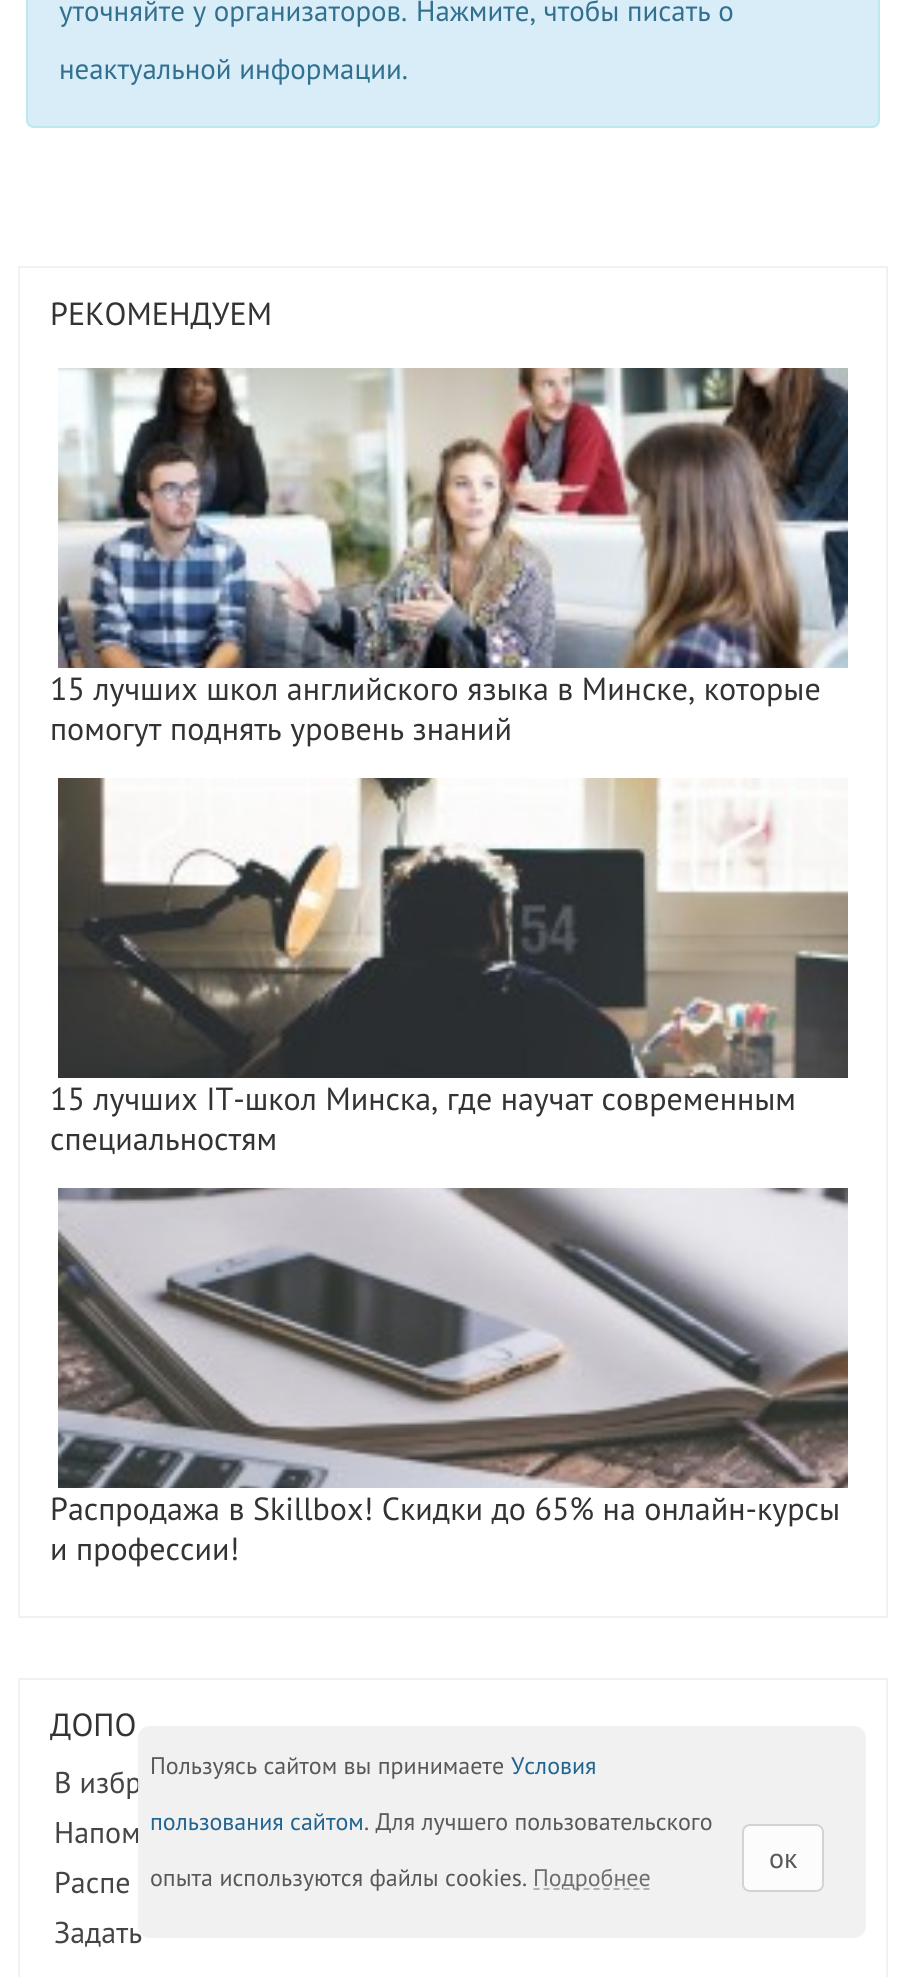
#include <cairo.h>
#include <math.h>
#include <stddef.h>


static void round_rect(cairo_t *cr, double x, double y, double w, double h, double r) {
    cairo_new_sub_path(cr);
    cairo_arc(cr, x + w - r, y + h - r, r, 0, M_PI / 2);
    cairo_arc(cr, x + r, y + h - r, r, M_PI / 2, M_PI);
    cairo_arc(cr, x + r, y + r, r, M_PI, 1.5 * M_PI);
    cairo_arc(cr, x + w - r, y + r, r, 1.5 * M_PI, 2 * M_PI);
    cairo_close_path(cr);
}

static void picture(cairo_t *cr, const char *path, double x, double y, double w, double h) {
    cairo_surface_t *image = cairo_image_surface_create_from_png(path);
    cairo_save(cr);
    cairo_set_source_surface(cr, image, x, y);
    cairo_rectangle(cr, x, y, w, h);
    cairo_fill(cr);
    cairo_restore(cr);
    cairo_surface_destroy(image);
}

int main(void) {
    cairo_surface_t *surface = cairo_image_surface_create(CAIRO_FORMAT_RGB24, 905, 1977);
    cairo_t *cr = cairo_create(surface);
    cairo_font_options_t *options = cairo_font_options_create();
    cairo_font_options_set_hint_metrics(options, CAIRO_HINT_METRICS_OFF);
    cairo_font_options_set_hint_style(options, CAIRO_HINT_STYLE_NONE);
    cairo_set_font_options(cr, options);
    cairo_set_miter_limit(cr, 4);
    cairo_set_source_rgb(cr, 1, 1, 1);
    cairo_paint(cr);
    cairo_set_source_rgb(cr, 0.851, 0.929, 0.969);
    round_rect(cr, 27, -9, 852, 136, 7);
    cairo_fill_preserve(cr);
    cairo_set_source_rgb(cr, 0.737, 0.91, 0.945);
    cairo_stroke(cr);
    cairo_select_font_face(cr, "PT Sans", CAIRO_FONT_SLANT_NORMAL, CAIRO_FONT_WEIGHT_NORMAL);
    cairo_set_font_size(cr, 28.9);
    cairo_set_source_rgb(cr, 0.192, 0.439, 0.561);
    cairo_move_to(cr, 59, 21);
    cairo_show_text(cr, "уточняйте у организаторов.");
    cairo_move_to(cr, 416, 21);
    cairo_show_text(cr, "Нажмите, чтобы писать о");
    cairo_move_to(cr, 59, 79);
    cairo_show_text(cr, "неактуальной информации.");
    cairo_rectangle(cr, 19, 267, 868, 1350);
    cairo_set_source_rgb(cr, 0.945, 0.945, 0.945);
    cairo_stroke(cr);
    cairo_set_font_size(cr, 32);
    cairo_set_source_rgb(cr, 0.2, 0.2, 0.2);
    cairo_move_to(cr, 50, 325);
    cairo_show_text(cr, "РЕКОМЕНДУЕМ");
    picture(cr, "img1.png", 58, 368, 790, 300);
    cairo_move_to(cr, 50, 700);
    cairo_show_text(cr, "15 лучших школ английского языка в Минске, которые");
    cairo_move_to(cr, 50, 740);
    cairo_show_text(cr, "помогут поднять уровень знаний");
    picture(cr, "img2.png", 58, 778, 790, 300);
    cairo_move_to(cr, 50, 1110);
    cairo_show_text(cr, "15 лучших IT-школ Минска, где научат современным");
    cairo_move_to(cr, 50, 1150);
    cairo_show_text(cr, "специальностям");
    picture(cr, "img3.png", 58, 1188, 790, 300);
    cairo_move_to(cr, 50, 1520);
    cairo_show_text(cr, "Распродажа в Skillbox! Скидки до 65% на онлайн-курсы");
    cairo_move_to(cr, 50, 1560);
    cairo_show_text(cr, "и профессии!");
    cairo_rectangle(cr, 19, 1679, 868, 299);
    cairo_set_source_rgb(cr, 0.945, 0.945, 0.945);
    cairo_stroke(cr);
    cairo_set_source_rgb(cr, 0.2, 0.2, 0.2);
    cairo_move_to(cr, 50, 1736);
    cairo_show_text(cr, "ДОПО");
    cairo_set_font_size(cr, 30);
    cairo_set_source_rgb(cr, 0.267, 0.267, 0.267);
    cairo_move_to(cr, 54, 1793);
    cairo_show_text(cr, "В избр");
    cairo_move_to(cr, 54, 1843);
    cairo_show_text(cr, "Напом");
    cairo_move_to(cr, 54, 1893);
    cairo_show_text(cr, "Распе");
    cairo_move_to(cr, 54, 1943);
    cairo_show_text(cr, "Задать");
    cairo_set_source_rgba(cr, 0.941, 0.941, 0.941, 0.93);
    round_rect(cr, 138, 1726, 728, 212, 12);
    cairo_fill(cr);
    cairo_set_font_size(cr, 24);
    cairo_set_source_rgb(cr, 0.345, 0.345, 0.345);
    cairo_move_to(cr, 150, 1774);
    cairo_show_text(cr, "Пользуясь сайтом вы принимаете");
    cairo_set_source_rgb(cr, 0.133, 0.392, 0.565);
    cairo_move_to(cr, 511, 1774);
    cairo_show_text(cr, "Условия");
    cairo_move_to(cr, 150, 1830);
    cairo_show_text(cr, "пользования сайтом");
    cairo_set_source_rgb(cr, 0.345, 0.345, 0.345);
    cairo_move_to(cr, 364, 1830);
    cairo_show_text(cr, ". Для лучшего пользовательского");
    cairo_move_to(cr, 150, 1886);
    cairo_show_text(cr, "опыта используются файлы cookies.");
    cairo_new_path(cr);
    cairo_move_to(cr, 533.5, 1889);
    cairo_line_to(cr, 651, 1889);
    cairo_set_source_rgb(cr, 0.69, 0.682, 0.682);
    cairo_set_dash(cr, (double[]){6, 4}, 2, 0);
    cairo_stroke(cr);
    cairo_set_source_rgb(cr, 0.435, 0.427, 0.427);
    cairo_move_to(cr, 533, 1886);
    cairo_show_text(cr, "Подробнее");
    cairo_set_source_rgb(cr, 0.988, 0.988, 0.988);
    round_rect(cr, 743, 1825, 80, 66, 7);
    cairo_fill_preserve(cr);
    cairo_set_source_rgb(cr, 0.827, 0.827, 0.827);
    cairo_set_dash(cr, NULL, 0, 0);
    cairo_stroke(cr);
    cairo_set_font_size(cr, 28);
    cairo_set_source_rgb(cr, 0.345, 0.345, 0.345);
    cairo_move_to(cr, 769, 1868);
    cairo_show_text(cr, "ок");
    cairo_surface_write_to_png(surface, "page.png");
    cairo_font_options_destroy(options);
    cairo_destroy(cr);
    cairo_surface_destroy(surface);
    return 0;
}
